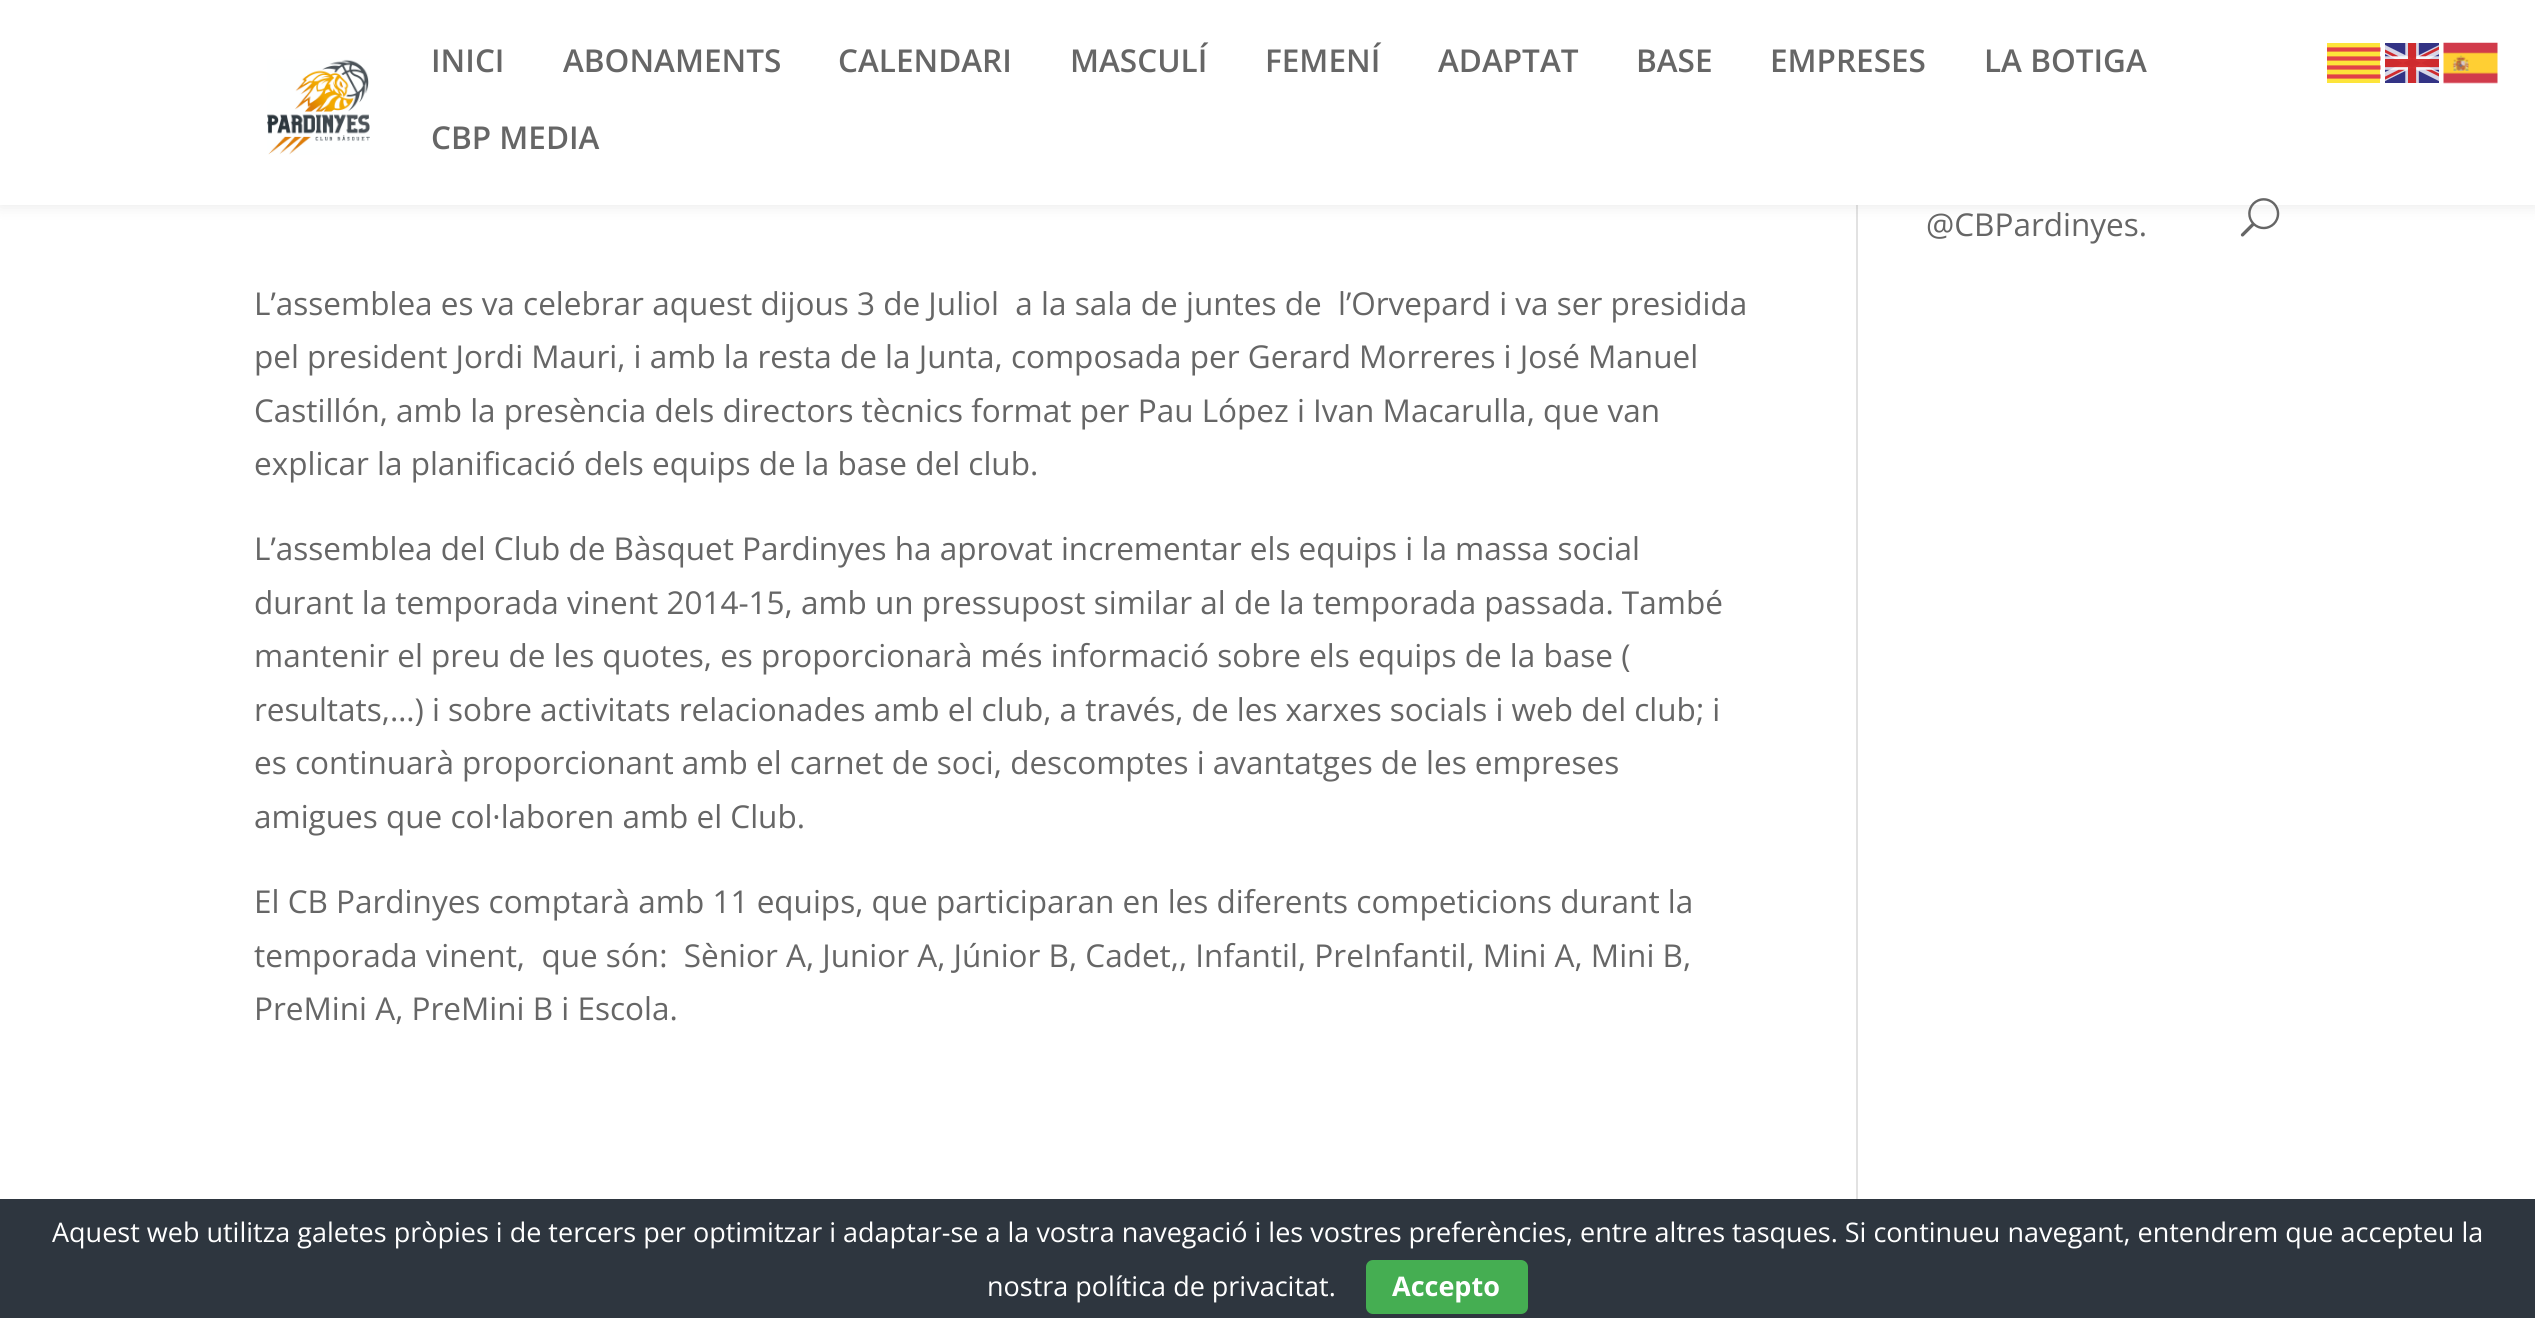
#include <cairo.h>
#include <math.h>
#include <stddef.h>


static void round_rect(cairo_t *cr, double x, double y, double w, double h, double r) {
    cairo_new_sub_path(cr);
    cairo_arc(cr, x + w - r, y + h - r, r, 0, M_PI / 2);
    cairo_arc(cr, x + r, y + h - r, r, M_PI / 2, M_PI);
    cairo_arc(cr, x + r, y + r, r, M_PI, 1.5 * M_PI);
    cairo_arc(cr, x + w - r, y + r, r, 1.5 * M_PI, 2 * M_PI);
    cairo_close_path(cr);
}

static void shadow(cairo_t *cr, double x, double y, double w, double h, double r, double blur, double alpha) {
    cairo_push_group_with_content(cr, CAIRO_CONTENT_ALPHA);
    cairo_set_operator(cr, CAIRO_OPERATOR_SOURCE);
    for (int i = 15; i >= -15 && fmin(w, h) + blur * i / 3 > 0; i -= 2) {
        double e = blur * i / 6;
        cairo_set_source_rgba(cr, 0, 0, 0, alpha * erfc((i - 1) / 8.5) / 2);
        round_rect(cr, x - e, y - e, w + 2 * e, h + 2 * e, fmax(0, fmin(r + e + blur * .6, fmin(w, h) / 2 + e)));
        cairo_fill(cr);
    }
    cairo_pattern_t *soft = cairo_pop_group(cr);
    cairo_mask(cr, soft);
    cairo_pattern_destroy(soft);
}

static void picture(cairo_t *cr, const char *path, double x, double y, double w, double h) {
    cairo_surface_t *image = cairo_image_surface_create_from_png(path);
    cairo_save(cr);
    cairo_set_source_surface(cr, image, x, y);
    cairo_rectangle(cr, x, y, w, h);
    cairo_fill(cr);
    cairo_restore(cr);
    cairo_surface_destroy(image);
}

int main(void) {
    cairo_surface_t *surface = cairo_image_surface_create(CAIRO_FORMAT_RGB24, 2535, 1318);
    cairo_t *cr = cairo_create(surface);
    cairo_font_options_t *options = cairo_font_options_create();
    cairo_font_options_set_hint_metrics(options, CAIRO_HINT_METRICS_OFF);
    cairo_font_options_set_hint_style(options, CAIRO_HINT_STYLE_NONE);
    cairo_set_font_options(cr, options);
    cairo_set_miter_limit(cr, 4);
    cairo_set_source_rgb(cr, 1, 1, 1);
    cairo_paint(cr);
    cairo_set_source_rgb(cr, 0.886, 0.886, 0.886);
    cairo_rectangle(cr, 1856, 205, 2, 994);
    cairo_fill(cr);
    cairo_set_source_rgb(cr, 0, 0, 0);
    shadow(cr, 0, 0, 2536, 205, 0, 8, 0.1);
    cairo_set_source_rgb(cr, 1, 1, 1);
    cairo_rectangle(cr, 0, 0, 2535, 205);
    cairo_fill(cr);
    picture(cr, "img1.png", 267, 59, 103, 96);
    cairo_select_font_face(cr, "Open Sans SemiBold", CAIRO_FONT_SLANT_NORMAL, CAIRO_FONT_WEIGHT_NORMAL);
    cairo_set_font_size(cr, 31.5);
    cairo_set_source_rgb(cr, 0.4, 0.4, 0.4);
    cairo_move_to(cr, 431, 72);
    cairo_show_text(cr, "INICI");
    cairo_move_to(cr, 563, 72);
    cairo_show_text(cr, "ABONAMENTS");
    cairo_move_to(cr, 838, 72);
    cairo_show_text(cr, "CALENDARI");
    cairo_move_to(cr, 1070, 72);
    cairo_show_text(cr, "MASCULÍ");
    cairo_move_to(cr, 1265, 72);
    cairo_show_text(cr, "FEMENÍ");
    cairo_move_to(cr, 1438, 72);
    cairo_show_text(cr, "ADAPTAT");
    cairo_move_to(cr, 1636, 72);
    cairo_show_text(cr, "BASE");
    cairo_move_to(cr, 1770, 72);
    cairo_show_text(cr, "EMPRESES");
    cairo_move_to(cr, 1984, 72);
    cairo_show_text(cr, "LA BOTIGA");
    cairo_move_to(cr, 431, 149);
    cairo_show_text(cr, "CBP MEDIA");
    picture(cr, "img2.png", 2240, 198, 40, 39);
    cairo_select_font_face(cr, "Open Sans", CAIRO_FONT_SLANT_NORMAL, CAIRO_FONT_WEIGHT_NORMAL);
    cairo_move_to(cr, 1926, 236);
    cairo_show_text(cr, "@CBPardinyes.");
    cairo_move_to(cr, 254, 315);
    cairo_show_text(cr, "L’assemblea es va celebrar aquest dijous 3 de Juliol  a la sala de juntes de  l’Orvepard i va ser presidida");
    cairo_move_to(cr, 254, 368);
    cairo_show_text(cr, "pel president Jordi Mauri, i amb la resta de la Junta, composada per Gerard Morreres i José Manuel");
    cairo_move_to(cr, 254, 422);
    cairo_show_text(cr, "Castillón, amb la presència dels directors tècnics format per Pau López i Ivan Macarulla, que van");
    cairo_move_to(cr, 254, 475);
    cairo_show_text(cr, "explicar la planificació dels equips de la base del club.");
    cairo_move_to(cr, 254, 560);
    cairo_show_text(cr, "L’assemblea del Club de Bàsquet Pardinyes ha aprovat incrementar els equips i la massa social");
    cairo_move_to(cr, 254, 614);
    cairo_show_text(cr, "durant la temporada vinent 2014-15, amb un pressupost similar al de la temporada passada. També");
    cairo_move_to(cr, 254, 667);
    cairo_show_text(cr, "mantenir el preu de les quotes, es proporcionarà més informació sobre els equips de la base (");
    cairo_move_to(cr, 254, 721);
    cairo_show_text(cr, "resultats,…) i sobre activitats relacionades amb el club, a través, de les xarxes socials i web del club; i");
    cairo_move_to(cr, 254, 774);
    cairo_show_text(cr, "es continuarà proporcionant amb el carnet de soci, descomptes i avantatges de les empreses");
    cairo_move_to(cr, 254, 828);
    cairo_show_text(cr, "amigues que col·laboren amb el Club.");
    cairo_move_to(cr, 254, 913);
    cairo_show_text(cr, "El CB Pardinyes comptarà amb 11 equips, que participaran en les diferents competicions durant la");
    cairo_move_to(cr, 254, 967);
    cairo_show_text(cr, "temporada vinent,  que són:  Sènior A, Junior A, Júnior B, Cadet,, Infantil, PreInfantil, Mini A, Mini B,");
    cairo_move_to(cr, 254, 1020);
    cairo_show_text(cr, "PreMini A, PreMini B i Escola.");
    cairo_set_source_rgb(cr, 0.992, 0.894, 0.227);
    cairo_rectangle(cr, 2327, 43, 53, 40);
    cairo_fill(cr);
    picture(cr, "img3.png", 2385, 43, 54, 40);
    picture(cr, "img4.png", 2443, 42, 55, 42);
    cairo_save(cr);
    cairo_rectangle(cr, 2327, 43, 54, 40);
    cairo_clip(cr);
    cairo_new_path(cr);
    cairo_move_to(cr, 2326.5, 49.5);
    cairo_line_to(cr, 2380.5, 49.5);
    cairo_move_to(cr, 2380.5, 58.5);
    cairo_line_to(cr, 2326.5, 58.5);
    cairo_move_to(cr, 2326.5, 67.5);
    cairo_line_to(cr, 2380.5, 67.5);
    cairo_move_to(cr, 2380.5, 76.5);
    cairo_line_to(cr, 2326.5, 76.5);
    cairo_set_source_rgb(cr, 0.882, 0.255, 0.282);
    cairo_set_line_width(cr, 4.2);
    cairo_stroke(cr);
    cairo_restore(cr);
    cairo_set_source_rgb(cr, 0.18, 0.212, 0.247);
    cairo_rectangle(cr, 0, 1199, 2535, 119);
    cairo_fill(cr);
    cairo_set_font_size(cr, 27);
    cairo_set_source_rgb(cr, 1, 1, 1);
    cairo_move_to(cr, 52, 1242);
    cairo_show_text(cr, "Aquest web utilitza galetes pròpies i de tercers per optimitzar i adaptar-se a la vostra navegació i les vostres preferències, entre altres tasques. Si continueu navegant, entendrem que accepteu la");
    cairo_move_to(cr, 987, 1296);
    cairo_show_text(cr, "nostra política de privacitat.");
    cairo_set_source_rgb(cr, 0.271, 0.682, 0.322);
    round_rect(cr, 1366, 1260, 162, 54, 7);
    cairo_fill(cr);
    cairo_select_font_face(cr, "Open Sans", CAIRO_FONT_SLANT_NORMAL, CAIRO_FONT_WEIGHT_BOLD);
    cairo_set_source_rgb(cr, 1, 1, 1);
    cairo_move_to(cr, 1392, 1296);
    cairo_show_text(cr, "Accepto");
    cairo_surface_write_to_png(surface, "page.png");
    cairo_font_options_destroy(options);
    cairo_destroy(cr);
    cairo_surface_destroy(surface);
    return 0;
}
